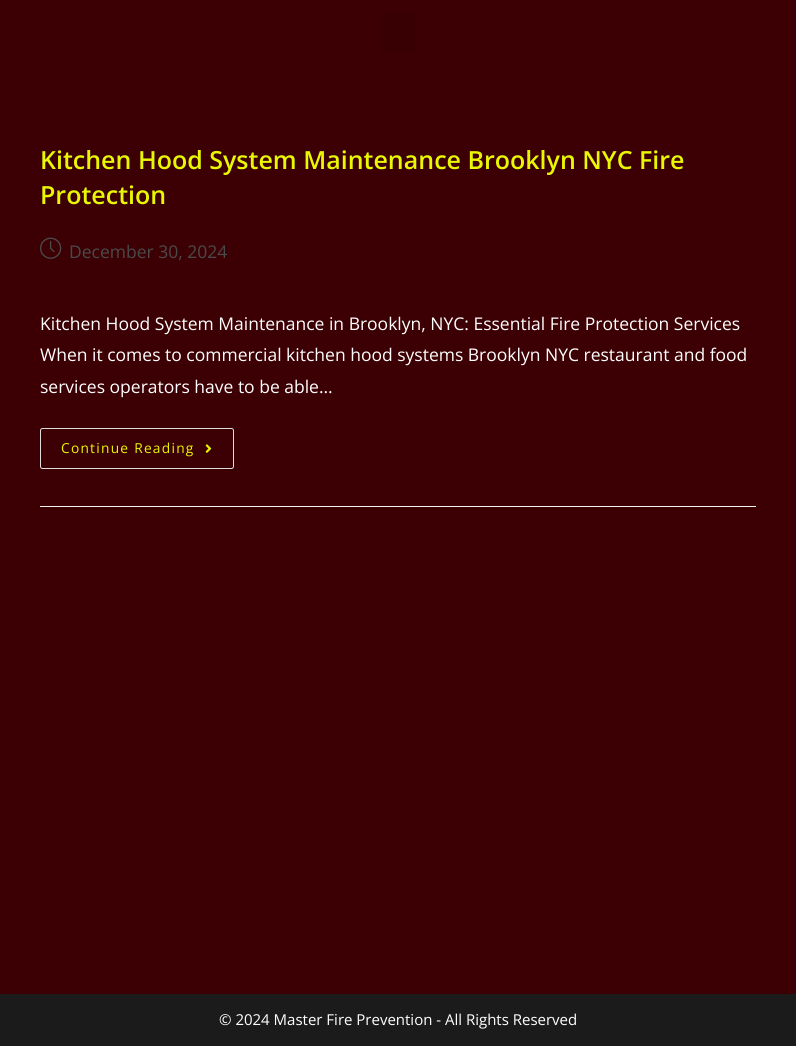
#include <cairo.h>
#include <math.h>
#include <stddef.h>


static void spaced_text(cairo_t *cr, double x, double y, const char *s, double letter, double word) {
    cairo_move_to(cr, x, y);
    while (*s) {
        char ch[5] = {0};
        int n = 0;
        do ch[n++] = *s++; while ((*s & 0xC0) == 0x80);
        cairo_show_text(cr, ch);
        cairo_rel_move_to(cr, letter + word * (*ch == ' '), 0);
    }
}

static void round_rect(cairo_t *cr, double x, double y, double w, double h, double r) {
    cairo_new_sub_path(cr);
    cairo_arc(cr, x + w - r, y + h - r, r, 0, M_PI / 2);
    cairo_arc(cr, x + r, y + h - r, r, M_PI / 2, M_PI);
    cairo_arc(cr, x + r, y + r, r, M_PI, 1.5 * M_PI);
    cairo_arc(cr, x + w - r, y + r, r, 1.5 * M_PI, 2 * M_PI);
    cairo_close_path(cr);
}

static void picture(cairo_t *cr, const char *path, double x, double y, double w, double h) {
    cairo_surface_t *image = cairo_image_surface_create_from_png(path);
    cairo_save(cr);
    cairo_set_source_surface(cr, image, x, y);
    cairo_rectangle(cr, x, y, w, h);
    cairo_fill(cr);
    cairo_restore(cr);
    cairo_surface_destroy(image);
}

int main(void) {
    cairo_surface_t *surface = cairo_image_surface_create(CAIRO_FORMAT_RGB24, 796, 1046);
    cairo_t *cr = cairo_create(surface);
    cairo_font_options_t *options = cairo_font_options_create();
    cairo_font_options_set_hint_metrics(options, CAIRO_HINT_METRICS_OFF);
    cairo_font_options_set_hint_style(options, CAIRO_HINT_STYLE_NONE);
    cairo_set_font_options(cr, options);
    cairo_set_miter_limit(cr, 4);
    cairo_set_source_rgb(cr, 0.235, 0, 0.016);
    cairo_paint(cr);
    cairo_set_source_rgb(cr, 0.224, 0, 0.016);
    round_rect(cr, 380, 13, 36, 41, 4);
    cairo_fill(cr);
    cairo_set_source_rgb(cr, 0.945, 0.945, 0.945);
    cairo_rectangle(cr, 40, 506, 716, 1);
    cairo_fill(cr);
    cairo_select_font_face(cr, "Open Sans SemiBold", CAIRO_FONT_SLANT_NORMAL, CAIRO_FONT_WEIGHT_NORMAL);
    cairo_set_font_size(cr, 25);
    cairo_set_source_rgb(cr, 0.91, 0.965, 0.008);
    cairo_move_to(cr, 40, 169);
    cairo_show_text(cr, "Kitchen Hood System Maintenance Brooklyn NYC Fire");
    cairo_move_to(cr, 40, 204);
    cairo_show_text(cr, "Protection");
    picture(cr, "img1.png", 40, 237, 22, 22);
    cairo_select_font_face(cr, "Open Sans", CAIRO_FONT_SLANT_NORMAL, CAIRO_FONT_WEIGHT_NORMAL);
    cairo_set_font_size(cr, 17.5);
    cairo_set_source_rgb(cr, 0.29, 0.29, 0.29);
    cairo_move_to(cr, 69, 258);
    cairo_show_text(cr, "December 30, 2024");
    cairo_set_source_rgb(cr, 1, 1, 1);
    cairo_move_to(cr, 40, 330);
    cairo_show_text(cr, "Kitchen Hood System Maintenance in Brooklyn, NYC: Essential Fire Protection Services");
    cairo_move_to(cr, 40, 361);
    cairo_show_text(cr, "When it comes to commercial kitchen hood systems Brooklyn NYC restaurant and food");
    cairo_move_to(cr, 40, 393);
    cairo_show_text(cr, "services operators have to be able…");
    round_rect(cr, 40.5, 428.5, 193, 40, 2);
    cairo_set_source_rgb(cr, 0.867, 0.867, 0.867);
    cairo_set_line_width(cr, 1);
    cairo_stroke(cr);
    cairo_set_font_size(cr, 13.75);
    cairo_set_source_rgb(cr, 0.91, 0.965, 0.008);
    spaced_text(cr, 61, 453, "Continue Reading", 1.25, 0);
    picture(cr, "img2.png", 205, 444, 7, 9);
    cairo_set_source_rgb(cr, 0.106, 0.106, 0.106);
    cairo_rectangle(cr, 0, 994, 796, 52);
    cairo_fill(cr);
    cairo_set_font_size(cr, 15);
    cairo_set_source_rgb(cr, 1, 1, 1);
    cairo_move_to(cr, 219, 1025);
    cairo_show_text(cr, "© 2024 Master Fire Prevention - All Rights Reserved");
    cairo_surface_write_to_png(surface, "page.png");
    cairo_font_options_destroy(options);
    cairo_destroy(cr);
    cairo_surface_destroy(surface);
    return 0;
}
